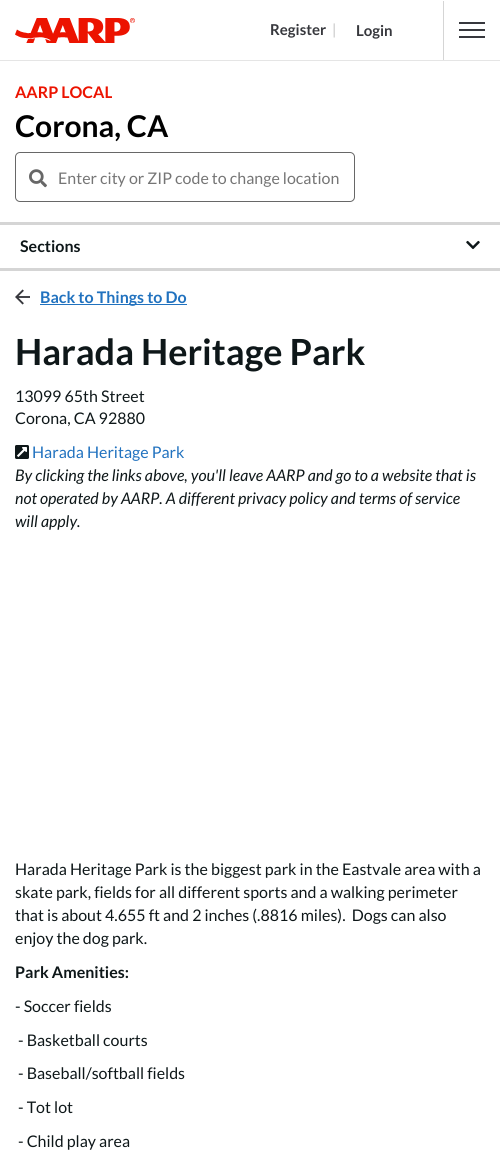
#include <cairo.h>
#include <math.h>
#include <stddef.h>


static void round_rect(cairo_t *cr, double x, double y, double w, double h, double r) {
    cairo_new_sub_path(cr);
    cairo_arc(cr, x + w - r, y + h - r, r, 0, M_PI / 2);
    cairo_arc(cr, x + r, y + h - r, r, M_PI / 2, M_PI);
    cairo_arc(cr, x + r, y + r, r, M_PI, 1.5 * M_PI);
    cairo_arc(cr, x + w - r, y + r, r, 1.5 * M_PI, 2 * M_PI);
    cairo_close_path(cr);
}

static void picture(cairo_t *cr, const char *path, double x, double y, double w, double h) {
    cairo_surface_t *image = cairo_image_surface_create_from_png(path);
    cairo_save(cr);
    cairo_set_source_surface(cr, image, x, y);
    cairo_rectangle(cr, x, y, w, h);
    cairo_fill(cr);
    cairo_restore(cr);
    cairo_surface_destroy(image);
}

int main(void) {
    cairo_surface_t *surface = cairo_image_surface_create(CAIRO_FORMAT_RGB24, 500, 1155);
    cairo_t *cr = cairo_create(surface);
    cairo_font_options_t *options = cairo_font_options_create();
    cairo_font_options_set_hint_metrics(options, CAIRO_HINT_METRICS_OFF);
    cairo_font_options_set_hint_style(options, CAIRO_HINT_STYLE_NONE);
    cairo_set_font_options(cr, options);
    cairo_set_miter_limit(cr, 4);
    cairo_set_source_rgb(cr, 1, 1, 1);
    cairo_paint(cr);
    cairo_set_source_rgb(cr, 0.898, 0.898, 0.898);
    cairo_rectangle(cr, 0, 60, 500, 1);
    cairo_fill(cr);
    picture(cr, "img1.png", 15, 18, 120, 25);
    cairo_select_font_face(cr, "Lato", CAIRO_FONT_SLANT_NORMAL, CAIRO_FONT_WEIGHT_BOLD);
    cairo_set_font_size(cr, 15);
    cairo_set_source_rgb(cr, 0.216, 0.22, 0.239);
    cairo_move_to(cr, 270, 35);
    cairo_show_text(cr, "Register");
    cairo_set_source_rgb(cr, 0.835, 0.835, 0.835);
    cairo_move_to(cr, 332, 35);
    cairo_show_text(cr, "|");
    cairo_rectangle(cr, 443, 1, 1, 59);
    cairo_fill(cr);
    cairo_set_source_rgb(cr, 0.216, 0.22, 0.239);
    cairo_move_to(cr, 356, 36);
    cairo_show_text(cr, "Login");
    cairo_rectangle(cr, 459, 22, 26, 2);
    cairo_fill(cr);
    cairo_rectangle(cr, 459, 29, 26, 2);
    cairo_fill(cr);
    cairo_rectangle(cr, 459, 36, 26, 2);
    cairo_fill(cr);
    cairo_set_font_size(cr, 16);
    cairo_set_source_rgb(cr, 0.925, 0.075, 0);
    cairo_move_to(cr, 15, 98);
    cairo_show_text(cr, "AARP LOCAL");
    cairo_set_font_size(cr, 30);
    cairo_set_source_rgb(cr, 0, 0, 0);
    cairo_move_to(cr, 15, 137);
    cairo_show_text(cr, "Corona, CA");
    round_rect(cr, 15.5, 152.5, 339, 49, 4.5);
    cairo_set_source_rgb(cr, 0.404, 0.404, 0.404);
    cairo_set_line_width(cr, 1);
    cairo_stroke(cr);
    picture(cr, "img2.png", 29, 169, 18, 19);
    cairo_select_font_face(cr, "Lato", CAIRO_FONT_SLANT_NORMAL, CAIRO_FONT_WEIGHT_NORMAL);
    cairo_set_font_size(cr, 16);
    cairo_set_source_rgb(cr, 0.459, 0.459, 0.459);
    cairo_move_to(cr, 58, 184);
    cairo_show_text(cr, "Enter city or ZIP code to change location");
    cairo_set_source_rgb(cr, 0.835, 0.835, 0.835);
    cairo_rectangle(cr, 0, 222, 500, 3);
    cairo_fill(cr);
    cairo_rectangle(cr, 0, 268, 500, 3);
    cairo_fill(cr);
    cairo_select_font_face(cr, "Lato", CAIRO_FONT_SLANT_NORMAL, CAIRO_FONT_WEIGHT_BOLD);
    cairo_set_source_rgb(cr, 0.055, 0.09, 0.098);
    cairo_move_to(cr, 20, 252);
    cairo_show_text(cr, "Sections");
    picture(cr, "img3.png", 466, 240, 14, 10);
    picture(cr, "img4.png", 15, 289, 15, 16);
    cairo_set_source_rgb(cr, 0.129, 0.447, 0.749);
    cairo_rectangle(cr, 40, 304, 147, 1);
    cairo_fill(cr);
    cairo_move_to(cr, 40, 303);
    cairo_show_text(cr, "Back to Things to Do");
    cairo_set_font_size(cr, 36);
    cairo_set_source_rgb(cr, 0.055, 0.09, 0.098);
    cairo_move_to(cr, 15, 365);
    cairo_show_text(cr, "Harada Heritage Park");
    cairo_select_font_face(cr, "Lato", CAIRO_FONT_SLANT_NORMAL, CAIRO_FONT_WEIGHT_NORMAL);
    cairo_set_font_size(cr, 16);
    cairo_move_to(cr, 15, 402);
    cairo_show_text(cr, "13099 65th Street");
    cairo_move_to(cr, 15, 424);
    cairo_show_text(cr, "Corona, CA 92880");
    picture(cr, "img5.png", 15, 445, 14, 14);
    cairo_set_source_rgb(cr, 0.129, 0.447, 0.749);
    cairo_move_to(cr, 32, 458);
    cairo_show_text(cr, "Harada Heritage Park");
    cairo_select_font_face(cr, "Lato", CAIRO_FONT_SLANT_ITALIC, CAIRO_FONT_WEIGHT_NORMAL);
    cairo_set_source_rgb(cr, 0.055, 0.09, 0.098);
    cairo_move_to(cr, 15, 481);
    cairo_show_text(cr, "By clicking the links above, you'll leave AARP and go to a website that is");
    cairo_move_to(cr, 15, 504);
    cairo_show_text(cr, "not operated by AARP. A different privacy policy and terms of service");
    cairo_move_to(cr, 15, 527);
    cairo_show_text(cr, "will apply.");
    cairo_select_font_face(cr, "Lato", CAIRO_FONT_SLANT_NORMAL, CAIRO_FONT_WEIGHT_NORMAL);
    cairo_move_to(cr, 15, 875);
    cairo_show_text(cr, "Harada Heritage Park is the biggest park in the Eastvale area with a");
    cairo_move_to(cr, 15, 898);
    cairo_show_text(cr, "skate park, fields for all different sports and a walking perimeter");
    cairo_move_to(cr, 15, 921);
    cairo_show_text(cr, "that is about 4.655 ft and 2 inches (.8816 miles).  Dogs can also");
    cairo_move_to(cr, 15, 944);
    cairo_show_text(cr, "enjoy the dog park.");
    cairo_select_font_face(cr, "Lato", CAIRO_FONT_SLANT_NORMAL, CAIRO_FONT_WEIGHT_BOLD);
    cairo_move_to(cr, 15, 978);
    cairo_show_text(cr, "Park Amenities:");
    cairo_select_font_face(cr, "Lato", CAIRO_FONT_SLANT_NORMAL, CAIRO_FONT_WEIGHT_NORMAL);
    cairo_move_to(cr, 15, 1012);
    cairo_show_text(cr, "- Soccer fields");
    cairo_move_to(cr, 18, 1046);
    cairo_show_text(cr, "- Basketball courts");
    cairo_move_to(cr, 18, 1079);
    cairo_show_text(cr, "- Baseball/softball fields");
    cairo_move_to(cr, 18, 1113);
    cairo_show_text(cr, "- Tot lot");
    cairo_move_to(cr, 18, 1147);
    cairo_show_text(cr, "- Child play area");
    cairo_surface_write_to_png(surface, "page.png");
    cairo_font_options_destroy(options);
    cairo_destroy(cr);
    cairo_surface_destroy(surface);
    return 0;
}
